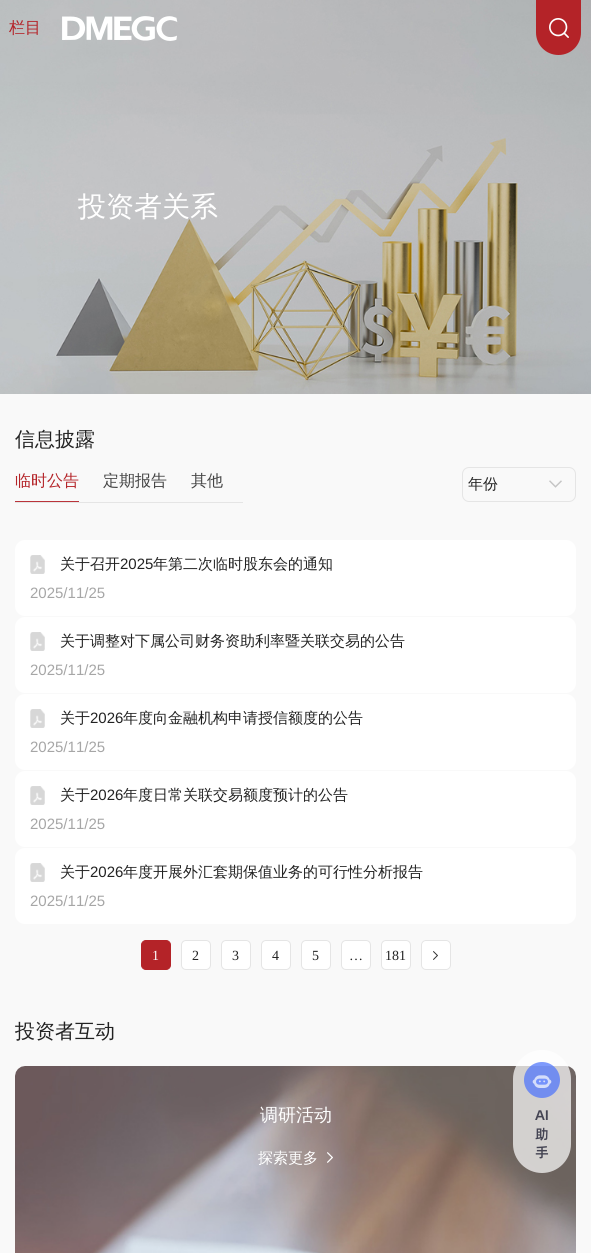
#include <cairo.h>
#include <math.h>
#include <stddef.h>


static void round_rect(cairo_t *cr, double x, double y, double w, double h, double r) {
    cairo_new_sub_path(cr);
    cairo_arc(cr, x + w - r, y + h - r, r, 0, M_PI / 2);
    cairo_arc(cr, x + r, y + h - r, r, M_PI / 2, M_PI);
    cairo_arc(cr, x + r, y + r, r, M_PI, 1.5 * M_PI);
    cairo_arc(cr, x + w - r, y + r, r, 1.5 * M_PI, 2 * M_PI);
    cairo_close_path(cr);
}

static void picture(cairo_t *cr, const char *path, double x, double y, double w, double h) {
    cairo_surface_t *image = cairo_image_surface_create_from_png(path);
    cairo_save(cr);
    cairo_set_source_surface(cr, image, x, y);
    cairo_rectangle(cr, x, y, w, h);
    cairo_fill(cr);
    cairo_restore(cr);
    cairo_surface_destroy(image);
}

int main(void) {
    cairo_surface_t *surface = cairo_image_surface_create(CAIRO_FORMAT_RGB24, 591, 1253);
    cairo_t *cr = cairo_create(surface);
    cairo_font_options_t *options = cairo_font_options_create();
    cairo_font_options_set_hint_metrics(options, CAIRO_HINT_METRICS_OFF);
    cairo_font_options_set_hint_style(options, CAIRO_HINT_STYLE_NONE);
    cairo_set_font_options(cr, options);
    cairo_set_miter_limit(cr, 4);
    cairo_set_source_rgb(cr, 0.973, 0.973, 0.973);
    cairo_paint(cr);
    picture(cr, "img3.png", 0, 0, 591, 394);
    cairo_select_font_face(cr, "WenQuanYi Zen Hei Medium", CAIRO_FONT_SLANT_NORMAL, CAIRO_FONT_WEIGHT_NORMAL);
    cairo_set_font_size(cr, 16);
    cairo_set_source_rgb(cr, 0.706, 0.137, 0.157);
    cairo_move_to(cr, 9, 33);
    cairo_show_text(cr, "栏目");
    picture(cr, "img1.png", 62, 16, 116, 25);
    cairo_new_path(cr);
    cairo_move_to(cr, 536, 0);
    cairo_line_to(cr, 581, 0);
    cairo_line_to(cr, 581, 32.5);
    cairo_curve_to(cr, 581, 45, 571, 55, 558.5, 55);
    cairo_curve_to(cr, 546, 55, 536, 45, 536, 32.5);
    cairo_close_path(cr);
    cairo_fill(cr);
    picture(cr, "img2.png", 549, 18, 20, 20);
    cairo_set_font_size(cr, 28);
    cairo_set_source_rgb(cr, 1, 1, 1);
    cairo_move_to(cr, 78, 216);
    cairo_show_text(cr, "投资者关系");
    cairo_set_font_size(cr, 20);
    cairo_set_source_rgb(cr, 0.133, 0.133, 0.133);
    cairo_move_to(cr, 15, 446);
    cairo_show_text(cr, "信息披露");
    cairo_set_source_rgb(cr, 0.898, 0.898, 0.898);
    cairo_rectangle(cr, 15, 502, 228, 1);
    cairo_fill(cr);
    cairo_set_source_rgb(cr, 0.729, 0.204, 0.227);
    cairo_rectangle(cr, 15, 501, 64, 1);
    cairo_fill(cr);
    cairo_set_font_size(cr, 16);
    cairo_set_source_rgb(cr, 0.706, 0.137, 0.157);
    cairo_move_to(cr, 15, 486);
    cairo_show_text(cr, "临时公告");
    cairo_set_source_rgb(cr, 0.267, 0.267, 0.267);
    cairo_move_to(cr, 103, 486);
    cairo_show_text(cr, "定期报告");
    cairo_move_to(cr, 191, 486);
    cairo_show_text(cr, "其他");
    round_rect(cr, 462.5, 467.5, 113, 34, 6.5);
    cairo_set_source_rgb(cr, 0.898, 0.898, 0.898);
    cairo_set_line_width(cr, 1);
    cairo_stroke(cr);
    cairo_set_font_size(cr, 15);
    cairo_set_source_rgb(cr, 0.133, 0.133, 0.133);
    cairo_move_to(cr, 468, 489);
    cairo_show_text(cr, "年份");
    picture(cr, "img4.png", 549, 480, 13, 8);
    cairo_set_source_rgb(cr, 1, 1, 1);
    round_rect(cr, 15, 540, 561, 76, 10);
    cairo_fill(cr);
    picture(cr, "img5.png", 30, 555, 15, 19);
    cairo_set_source_rgb(cr, 0.133, 0.133, 0.133);
    cairo_move_to(cr, 60, 569);
    cairo_show_text(cr, "关于召开");
    cairo_select_font_face(cr, "Liberation Sans", CAIRO_FONT_SLANT_NORMAL, CAIRO_FONT_WEIGHT_NORMAL);
    cairo_move_to(cr, 120, 569);
    cairo_show_text(cr, "2025");
    cairo_select_font_face(cr, "WenQuanYi Zen Hei Medium", CAIRO_FONT_SLANT_NORMAL, CAIRO_FONT_WEIGHT_NORMAL);
    cairo_move_to(cr, 153, 569);
    cairo_show_text(cr, "年第二次临时股东会的通知");
    cairo_select_font_face(cr, "Liberation Sans", CAIRO_FONT_SLANT_NORMAL, CAIRO_FONT_WEIGHT_NORMAL);
    cairo_set_source_rgb(cr, 0.651, 0.651, 0.651);
    cairo_move_to(cr, 30, 598);
    cairo_show_text(cr, "2025/11/25");
    cairo_set_source_rgb(cr, 1, 1, 1);
    round_rect(cr, 15, 617, 561, 76, 10);
    cairo_fill(cr);
    picture(cr, "img5.png", 30, 632, 15, 19);
    cairo_select_font_face(cr, "WenQuanYi Zen Hei Medium", CAIRO_FONT_SLANT_NORMAL, CAIRO_FONT_WEIGHT_NORMAL);
    cairo_set_source_rgb(cr, 0.133, 0.133, 0.133);
    cairo_move_to(cr, 60, 646);
    cairo_show_text(cr, "关于调整对下属公司财务资助利率暨关联交易的公告");
    cairo_select_font_face(cr, "Liberation Sans", CAIRO_FONT_SLANT_NORMAL, CAIRO_FONT_WEIGHT_NORMAL);
    cairo_set_source_rgb(cr, 0.651, 0.651, 0.651);
    cairo_move_to(cr, 30, 675);
    cairo_show_text(cr, "2025/11/25");
    cairo_set_source_rgb(cr, 1, 1, 1);
    round_rect(cr, 15, 694, 561, 76, 10);
    cairo_fill(cr);
    picture(cr, "img5.png", 30, 709, 15, 19);
    cairo_select_font_face(cr, "WenQuanYi Zen Hei Medium", CAIRO_FONT_SLANT_NORMAL, CAIRO_FONT_WEIGHT_NORMAL);
    cairo_set_source_rgb(cr, 0.133, 0.133, 0.133);
    cairo_move_to(cr, 60, 723);
    cairo_show_text(cr, "关于");
    cairo_select_font_face(cr, "Liberation Sans", CAIRO_FONT_SLANT_NORMAL, CAIRO_FONT_WEIGHT_NORMAL);
    cairo_move_to(cr, 90, 723);
    cairo_show_text(cr, "2026");
    cairo_select_font_face(cr, "WenQuanYi Zen Hei Medium", CAIRO_FONT_SLANT_NORMAL, CAIRO_FONT_WEIGHT_NORMAL);
    cairo_move_to(cr, 123, 723);
    cairo_show_text(cr, "年度向金融机构申请授信额度的公告");
    cairo_select_font_face(cr, "Liberation Sans", CAIRO_FONT_SLANT_NORMAL, CAIRO_FONT_WEIGHT_NORMAL);
    cairo_set_source_rgb(cr, 0.651, 0.651, 0.651);
    cairo_move_to(cr, 30, 752);
    cairo_show_text(cr, "2025/11/25");
    cairo_set_source_rgb(cr, 1, 1, 1);
    round_rect(cr, 15, 771, 561, 76, 10);
    cairo_fill(cr);
    picture(cr, "img5.png", 30, 786, 15, 19);
    cairo_select_font_face(cr, "WenQuanYi Zen Hei Medium", CAIRO_FONT_SLANT_NORMAL, CAIRO_FONT_WEIGHT_NORMAL);
    cairo_set_source_rgb(cr, 0.133, 0.133, 0.133);
    cairo_move_to(cr, 60, 800);
    cairo_show_text(cr, "关于");
    cairo_select_font_face(cr, "Liberation Sans", CAIRO_FONT_SLANT_NORMAL, CAIRO_FONT_WEIGHT_NORMAL);
    cairo_move_to(cr, 90, 800);
    cairo_show_text(cr, "2026");
    cairo_select_font_face(cr, "WenQuanYi Zen Hei Medium", CAIRO_FONT_SLANT_NORMAL, CAIRO_FONT_WEIGHT_NORMAL);
    cairo_move_to(cr, 123, 800);
    cairo_show_text(cr, "年度日常关联交易额度预计的公告");
    cairo_select_font_face(cr, "Liberation Sans", CAIRO_FONT_SLANT_NORMAL, CAIRO_FONT_WEIGHT_NORMAL);
    cairo_set_source_rgb(cr, 0.651, 0.651, 0.651);
    cairo_move_to(cr, 30, 829);
    cairo_show_text(cr, "2025/11/25");
    cairo_set_source_rgb(cr, 1, 1, 1);
    round_rect(cr, 15, 848, 561, 76, 10);
    cairo_fill(cr);
    picture(cr, "img5.png", 30, 863, 15, 19);
    cairo_select_font_face(cr, "WenQuanYi Zen Hei Medium", CAIRO_FONT_SLANT_NORMAL, CAIRO_FONT_WEIGHT_NORMAL);
    cairo_set_source_rgb(cr, 0.133, 0.133, 0.133);
    cairo_move_to(cr, 60, 877);
    cairo_show_text(cr, "关于");
    cairo_select_font_face(cr, "Liberation Sans", CAIRO_FONT_SLANT_NORMAL, CAIRO_FONT_WEIGHT_NORMAL);
    cairo_move_to(cr, 90, 877);
    cairo_show_text(cr, "2026");
    cairo_select_font_face(cr, "WenQuanYi Zen Hei Medium", CAIRO_FONT_SLANT_NORMAL, CAIRO_FONT_WEIGHT_NORMAL);
    cairo_move_to(cr, 123, 877);
    cairo_show_text(cr, "年度开展外汇套期保值业务的可行性分析报告");
    cairo_select_font_face(cr, "Liberation Sans", CAIRO_FONT_SLANT_NORMAL, CAIRO_FONT_WEIGHT_NORMAL);
    cairo_set_source_rgb(cr, 0.651, 0.651, 0.651);
    cairo_move_to(cr, 30, 906);
    cairo_show_text(cr, "2025/11/25");
    cairo_set_source_rgb(cr, 0.706, 0.137, 0.157);
    round_rect(cr, 141.5, 940.5, 29, 29, 4.5);
    cairo_fill_preserve(cr);
    cairo_stroke(cr);
    cairo_select_font_face(cr, "Liberation Serif", CAIRO_FONT_SLANT_NORMAL, CAIRO_FONT_WEIGHT_NORMAL);
    cairo_set_font_size(cr, 14);
    cairo_set_source_rgb(cr, 1, 1, 1);
    cairo_move_to(cr, 152, 960);
    cairo_show_text(cr, "1");
    round_rect(cr, 181.5, 940.5, 29, 29, 4.5);
    cairo_fill_preserve(cr);
    cairo_set_source_rgb(cr, 0.898, 0.898, 0.898);
    cairo_stroke(cr);
    cairo_set_source_rgb(cr, 0.133, 0.133, 0.133);
    cairo_move_to(cr, 192, 960);
    cairo_show_text(cr, "2");
    cairo_set_source_rgb(cr, 1, 1, 1);
    round_rect(cr, 221.5, 940.5, 29, 29, 4.5);
    cairo_fill_preserve(cr);
    cairo_set_source_rgb(cr, 0.898, 0.898, 0.898);
    cairo_stroke(cr);
    cairo_set_source_rgb(cr, 0.133, 0.133, 0.133);
    cairo_move_to(cr, 232, 960);
    cairo_show_text(cr, "3");
    cairo_set_source_rgb(cr, 1, 1, 1);
    round_rect(cr, 261.5, 940.5, 29, 29, 4.5);
    cairo_fill_preserve(cr);
    cairo_set_source_rgb(cr, 0.898, 0.898, 0.898);
    cairo_stroke(cr);
    cairo_set_source_rgb(cr, 0.133, 0.133, 0.133);
    cairo_move_to(cr, 272, 960);
    cairo_show_text(cr, "4");
    cairo_set_source_rgb(cr, 1, 1, 1);
    round_rect(cr, 301.5, 940.5, 29, 29, 4.5);
    cairo_fill_preserve(cr);
    cairo_set_source_rgb(cr, 0.898, 0.898, 0.898);
    cairo_stroke(cr);
    cairo_set_source_rgb(cr, 0.133, 0.133, 0.133);
    cairo_move_to(cr, 312, 960);
    cairo_show_text(cr, "5");
    cairo_set_source_rgb(cr, 1, 1, 1);
    round_rect(cr, 341.5, 940.5, 29, 29, 4.5);
    cairo_fill_preserve(cr);
    cairo_set_source_rgb(cr, 0.898, 0.898, 0.898);
    cairo_stroke(cr);
    cairo_set_source_rgb(cr, 0.133, 0.133, 0.133);
    cairo_move_to(cr, 349, 960);
    cairo_show_text(cr, "…");
    cairo_set_source_rgb(cr, 1, 1, 1);
    round_rect(cr, 381.5, 940.5, 29, 29, 4.5);
    cairo_fill_preserve(cr);
    cairo_set_source_rgb(cr, 0.898, 0.898, 0.898);
    cairo_stroke(cr);
    cairo_set_source_rgb(cr, 0.133, 0.133, 0.133);
    cairo_move_to(cr, 385, 960);
    cairo_show_text(cr, "181");
    cairo_set_source_rgb(cr, 1, 1, 1);
    round_rect(cr, 421, 940, 30, 30, 5);
    cairo_fill(cr);
    picture(cr, "img6.png", 433, 951, 5, 9);
    round_rect(cr, 421.5, 940.5, 29, 29, 4.5);
    cairo_set_source_rgb(cr, 0.898, 0.898, 0.898);
    cairo_stroke(cr);
    cairo_select_font_face(cr, "WenQuanYi Zen Hei Medium", CAIRO_FONT_SLANT_NORMAL, CAIRO_FONT_WEIGHT_NORMAL);
    cairo_set_font_size(cr, 20);
    cairo_set_source_rgb(cr, 0.133, 0.133, 0.133);
    cairo_move_to(cr, 15, 1038);
    cairo_show_text(cr, "投资者互动");
    picture(cr, "img7.png", 15, 1066, 561, 187);
    cairo_set_font_size(cr, 18);
    cairo_set_source_rgb(cr, 1, 1, 1);
    cairo_move_to(cr, 260, 1121);
    cairo_show_text(cr, "调研活动");
    picture(cr, "img8.png", 327, 1152, 6, 11);
    cairo_set_font_size(cr, 15);
    cairo_move_to(cr, 258, 1163);
    cairo_show_text(cr, "探索更多");
    cairo_set_source_rgba(cr, 1, 1, 1, 0.7);
    round_rect(cr, 513, 1050, 58, 123, 29);
    cairo_fill(cr);
    cairo_set_source_rgba(cr, 0.29, 0.443, 0.992, 0.7);
    cairo_arc(cr, 542, 1080, 18, 0, 2 * M_PI);
    cairo_fill(cr);
    picture(cr, "img9.png", 532, 1075, 20, 13);
    cairo_select_font_face(cr, "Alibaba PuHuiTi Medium", CAIRO_FONT_SLANT_NORMAL, CAIRO_FONT_WEIGHT_NORMAL);
    cairo_set_font_size(cr, 14);
    cairo_set_source_rgb(cr, 0.267, 0.267, 0.325);
    cairo_move_to(cr, 535, 1120);
    cairo_show_text(cr, "AI");
    cairo_move_to(cr, 535, 1139);
    cairo_show_text(cr, "助");
    cairo_move_to(cr, 535, 1157);
    cairo_show_text(cr, "手");
    cairo_surface_write_to_png(surface, "page.png");
    cairo_font_options_destroy(options);
    cairo_destroy(cr);
    cairo_surface_destroy(surface);
    return 0;
}
